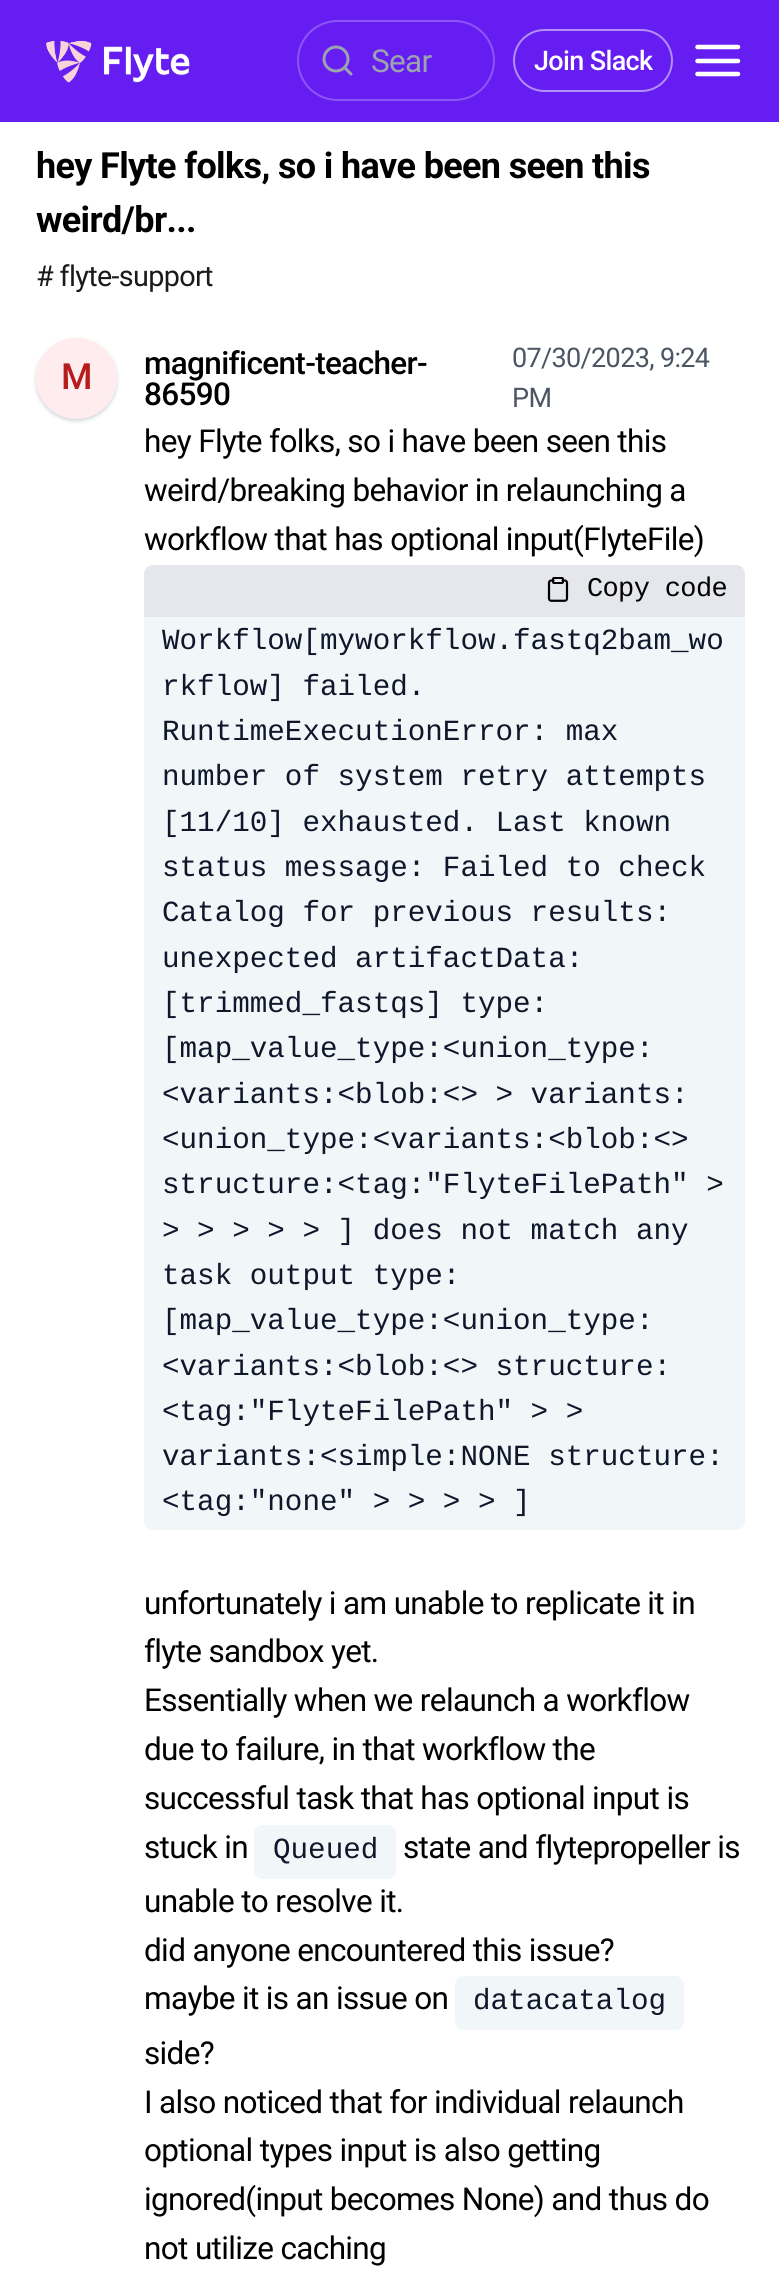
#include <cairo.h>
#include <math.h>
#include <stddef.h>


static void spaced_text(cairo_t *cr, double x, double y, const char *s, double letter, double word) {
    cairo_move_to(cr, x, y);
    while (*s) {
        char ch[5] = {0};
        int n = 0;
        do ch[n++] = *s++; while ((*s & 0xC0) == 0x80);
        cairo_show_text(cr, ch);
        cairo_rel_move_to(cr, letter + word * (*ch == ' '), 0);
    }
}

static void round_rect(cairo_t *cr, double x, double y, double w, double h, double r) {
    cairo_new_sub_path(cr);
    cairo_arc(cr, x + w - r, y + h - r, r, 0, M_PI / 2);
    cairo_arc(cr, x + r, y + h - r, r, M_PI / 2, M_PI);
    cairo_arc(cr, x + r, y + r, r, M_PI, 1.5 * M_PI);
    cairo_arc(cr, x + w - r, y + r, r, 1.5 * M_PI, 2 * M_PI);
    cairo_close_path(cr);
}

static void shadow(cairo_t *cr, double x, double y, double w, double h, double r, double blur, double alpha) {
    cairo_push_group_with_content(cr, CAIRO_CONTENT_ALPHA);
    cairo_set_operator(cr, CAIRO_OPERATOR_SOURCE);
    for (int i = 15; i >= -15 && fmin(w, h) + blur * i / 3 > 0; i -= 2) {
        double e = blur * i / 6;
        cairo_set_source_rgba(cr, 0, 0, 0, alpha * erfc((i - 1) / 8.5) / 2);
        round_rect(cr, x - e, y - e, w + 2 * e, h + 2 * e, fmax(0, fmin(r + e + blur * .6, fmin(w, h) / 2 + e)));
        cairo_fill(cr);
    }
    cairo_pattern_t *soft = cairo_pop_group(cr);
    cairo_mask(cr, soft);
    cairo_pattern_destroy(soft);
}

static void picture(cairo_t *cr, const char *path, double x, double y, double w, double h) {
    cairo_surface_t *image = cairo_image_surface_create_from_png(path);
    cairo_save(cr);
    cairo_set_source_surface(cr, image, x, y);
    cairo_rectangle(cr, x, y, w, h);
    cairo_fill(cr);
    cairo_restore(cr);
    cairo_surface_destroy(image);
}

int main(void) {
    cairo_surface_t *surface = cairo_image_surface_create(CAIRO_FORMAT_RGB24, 779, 2272);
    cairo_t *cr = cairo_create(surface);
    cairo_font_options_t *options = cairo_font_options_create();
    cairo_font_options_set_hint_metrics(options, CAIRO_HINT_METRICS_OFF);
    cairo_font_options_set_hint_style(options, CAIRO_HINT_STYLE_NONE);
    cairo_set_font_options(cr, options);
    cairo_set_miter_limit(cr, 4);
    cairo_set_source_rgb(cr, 1, 1, 1);
    cairo_paint(cr);
    cairo_set_source_rgb(cr, 0.396, 0.114, 0.945);
    cairo_rectangle(cr, 0, 0, 779, 122);
    cairo_fill(cr);
    picture(cr, "img1.png", 46, 40, 144, 43);
    round_rect(cr, 298, 21, 196, 79, 39.5);
    cairo_set_source_rgb(cr, 0.549, 0.337, 0.961);
    cairo_stroke(cr);
    cairo_arc(cr, 336, 59, 12, 0, 2 * M_PI);
    cairo_set_source_rgb(cr, 0.612, 0.639, 0.686);
    cairo_set_line_width(cr, 3);
    cairo_stroke(cr);
    cairo_new_path(cr);
    cairo_move_to(cr, 351, 74);
    cairo_line_to(cr, 344.5, 67.5);
    cairo_set_line_cap(cr, CAIRO_LINE_CAP_ROUND);
    cairo_set_line_join(cr, CAIRO_LINE_JOIN_ROUND);
    cairo_stroke(cr);
    cairo_select_font_face(cr, "Roboto", CAIRO_FONT_SLANT_NORMAL, CAIRO_FONT_WEIGHT_NORMAL);
    cairo_set_font_size(cr, 31.5);
    spaced_text(cr, 371, 72, "Sear", -0.65, 0);
    round_rect(cr, 514, 30, 158, 61, 30.5);
    cairo_set_source_rgb(cr, 0.698, 0.557, 0.973);
    cairo_set_line_width(cr, 2);
    cairo_set_line_cap(cr, CAIRO_LINE_CAP_BUTT);
    cairo_set_line_join(cr, CAIRO_LINE_JOIN_MITER);
    cairo_stroke(cr);
    cairo_select_font_face(cr, "Roboto Medium", CAIRO_FONT_SLANT_NORMAL, CAIRO_FONT_WEIGHT_NORMAL);
    cairo_set_font_size(cr, 27);
    cairo_set_source_rgb(cr, 1, 1, 1);
    spaced_text(cr, 534, 70, "Join Slack", -0.65, 0);
    cairo_new_path(cr);
    cairo_move_to(cr, 697.5, 61);
    cairo_line_to(cr, 738, 61);
    cairo_move_to(cr, 697.5, 47);
    cairo_line_to(cr, 738, 47);
    cairo_move_to(cr, 697.5, 74);
    cairo_line_to(cr, 738, 74);
    cairo_set_line_width(cr, 4.5);
    cairo_set_line_cap(cr, CAIRO_LINE_CAP_ROUND);
    cairo_set_line_join(cr, CAIRO_LINE_JOIN_ROUND);
    cairo_stroke(cr);
    cairo_select_font_face(cr, "Roboto", CAIRO_FONT_SLANT_NORMAL, CAIRO_FONT_WEIGHT_BOLD);
    cairo_set_font_size(cr, 36);
    cairo_set_source_rgb(cr, 0, 0, 0);
    spaced_text(cr, 36, 178, "hey Flyte folks, so i have been seen this", -0.65, 0);
    spaced_text(cr, 36, 232, "weird/br...", -0.65, 0);
    cairo_select_font_face(cr, "Roboto", CAIRO_FONT_SLANT_NORMAL, CAIRO_FONT_WEIGHT_NORMAL);
    cairo_set_font_size(cr, 28.75);
    cairo_set_source_rgb(cr, 0.102, 0.102, 0.102);
    spaced_text(cr, 36, 286, "# flyte-support", -0.65, 0);
    cairo_set_source_rgb(cr, 0.82, 0.835, 0.859);
    shadow(cr, 36, 340, 81, 81, 40.5, 2, 1);
    cairo_set_source_rgb(cr, 1, 0.922, 0.933);
    cairo_arc(cr, 76.5, 378.5, 40.5, 0, 2 * M_PI);
    cairo_fill(cr);
    cairo_select_font_face(cr, "Roboto Medium", CAIRO_FONT_SLANT_NORMAL, CAIRO_FONT_WEIGHT_NORMAL);
    cairo_set_font_size(cr, 36);
    cairo_set_source_rgb(cr, 0.718, 0.11, 0.11);
    spaced_text(cr, 61, 389, "M", -0.65, 0);
    cairo_set_font_size(cr, 31.5);
    cairo_set_source_rgb(cr, 0, 0, 0);
    spaced_text(cr, 144, 374, "magnificent-teacher-", -0.65, 0);
    spaced_text(cr, 144, 405, "86590", -0.65, 0);
    cairo_select_font_face(cr, "Roboto", CAIRO_FONT_SLANT_NORMAL, CAIRO_FONT_WEIGHT_NORMAL);
    cairo_set_font_size(cr, 27);
    cairo_set_source_rgb(cr, 0.294, 0.333, 0.388);
    spaced_text(cr, 512, 367, "07/30/2023, 9:24", -0.65, 0);
    spaced_text(cr, 512, 407, "PM", -0.65, 0);
    cairo_set_font_size(cr, 31.5);
    cairo_set_source_rgb(cr, 0, 0, 0);
    spaced_text(cr, 144, 452, "hey Flyte folks, so i have been seen this", -0.65, 0);
    spaced_text(cr, 144, 501, "weird/breaking behavior in relaunching a", -0.65, 0);
    spaced_text(cr, 144, 550, "workflow that has optional input(FlyteFile)", -0.65, 0);
    cairo_set_source_rgb(cr, 0.898, 0.906, 0.922);
    cairo_new_path(cr);
    cairo_move_to(cr, 153, 565);
    cairo_line_to(cr, 736, 565);
    cairo_curve_to(cr, 741, 565, 745, 569, 745, 574);
    cairo_line_to(cr, 745, 617);
    cairo_line_to(cr, 144, 617);
    cairo_line_to(cr, 144, 574);
    cairo_curve_to(cr, 144, 569, 148, 565, 153, 565);
    cairo_close_path(cr);
    cairo_fill(cr);
    picture(cr, "img2.png", 547, 577, 22, 25);
    cairo_select_font_face(cr, "Liberation Mono", CAIRO_FONT_SLANT_NORMAL, CAIRO_FONT_WEIGHT_NORMAL);
    cairo_set_font_size(cr, 27);
    cairo_set_source_rgb(cr, 0, 0, 0);
    spaced_text(cr, 587, 596, "Copy code", -0.65, 0);
    cairo_set_source_rgb(cr, 0.945, 0.961, 0.976);
    cairo_new_path(cr);
    cairo_move_to(cr, 144, 617);
    cairo_line_to(cr, 745, 617);
    cairo_line_to(cr, 745, 1521);
    cairo_curve_to(cr, 745, 1526, 741, 1530, 736, 1530);
    cairo_line_to(cr, 153, 1530);
    cairo_curve_to(cr, 148, 1530, 144, 1526, 144, 1521);
    cairo_close_path(cr);
    cairo_fill(cr);
    cairo_set_font_size(cr, 29.25);
    cairo_set_source_rgb(cr, 0.059, 0.09, 0.165);
    cairo_move_to(cr, 162, 649);
    cairo_show_text(cr, "Workflow[myworkflow.fastq2bam_wo");
    cairo_move_to(cr, 162, 695);
    cairo_show_text(cr, "rkflow] failed.");
    cairo_move_to(cr, 162, 740);
    cairo_show_text(cr, "RuntimeExecutionError: max");
    cairo_move_to(cr, 162, 785);
    cairo_show_text(cr, "number of system retry attempts");
    cairo_move_to(cr, 162, 831);
    cairo_show_text(cr, "[11/10] exhausted. Last known");
    cairo_move_to(cr, 162, 876);
    cairo_show_text(cr, "status message: Failed to check");
    cairo_move_to(cr, 162, 921);
    cairo_show_text(cr, "Catalog for previous results:");
    cairo_move_to(cr, 162, 967);
    cairo_show_text(cr, "unexpected artifactData:");
    cairo_move_to(cr, 162, 1012);
    cairo_show_text(cr, "[trimmed_fastqs] type:");
    cairo_move_to(cr, 162, 1057);
    cairo_show_text(cr, "[map_value_type:<union_type:");
    cairo_move_to(cr, 162, 1103);
    cairo_show_text(cr, "<variants:<blob:<> > variants:");
    cairo_move_to(cr, 162, 1148);
    cairo_show_text(cr, "<union_type:<variants:<blob:<>");
    cairo_move_to(cr, 162, 1193);
    cairo_show_text(cr, "structure:<tag:\"FlyteFilePath\" >");
    cairo_move_to(cr, 162, 1239);
    cairo_show_text(cr, "> > > > > ] does not match any");
    cairo_move_to(cr, 162, 1284);
    cairo_show_text(cr, "task output type:");
    cairo_move_to(cr, 162, 1329);
    cairo_show_text(cr, "[map_value_type:<union_type:");
    cairo_move_to(cr, 162, 1375);
    cairo_show_text(cr, "<variants:<blob:<> structure:");
    cairo_move_to(cr, 162, 1420);
    cairo_show_text(cr, "<tag:\"FlyteFilePath\" > >");
    cairo_move_to(cr, 162, 1465);
    cairo_show_text(cr, "variants:<simple:NONE structure:");
    cairo_move_to(cr, 162, 1510);
    cairo_show_text(cr, "<tag:\"none\" > > > > ]");
    cairo_select_font_face(cr, "Roboto", CAIRO_FONT_SLANT_NORMAL, CAIRO_FONT_WEIGHT_NORMAL);
    cairo_set_font_size(cr, 31.5);
    cairo_set_source_rgb(cr, 0, 0, 0);
    spaced_text(cr, 144, 1614, "unfortunately i am unable to replicate it in", -0.65, 0);
    spaced_text(cr, 144, 1662, "flyte sandbox yet.", -0.65, 0);
    spaced_text(cr, 144, 1711, "Essentially when we relaunch a workflow", -0.65, 0);
    spaced_text(cr, 144, 1760, "due to failure, in that workflow the", -0.65, 0);
    spaced_text(cr, 144, 1809, "successful task that has optional input is", -0.65, 0);
    spaced_text(cr, 144, 1858, "stuck in", -0.65, 0);
    cairo_set_source_rgb(cr, 0.945, 0.961, 0.976);
    round_rect(cr, 254, 1825, 142, 54, 9);
    cairo_fill(cr);
    cairo_select_font_face(cr, "Liberation Mono", CAIRO_FONT_SLANT_NORMAL, CAIRO_FONT_WEIGHT_NORMAL);
    cairo_set_font_size(cr, 29.25);
    cairo_set_source_rgb(cr, 0.059, 0.09, 0.165);
    cairo_move_to(cr, 273, 1858);
    cairo_show_text(cr, "Queued");
    cairo_select_font_face(cr, "Roboto", CAIRO_FONT_SLANT_NORMAL, CAIRO_FONT_WEIGHT_NORMAL);
    cairo_set_font_size(cr, 31.5);
    cairo_set_source_rgb(cr, 0, 0, 0);
    spaced_text(cr, 403, 1858, "state and flytepropeller is", -0.65, 0);
    spaced_text(cr, 144, 1912, "unable to resolve it.", -0.65, 0);
    spaced_text(cr, 144, 1961, "did anyone encountered this issue?", -0.65, 0);
    spaced_text(cr, 144, 2009, "maybe it is an issue on", -0.65, 0);
    cairo_set_source_rgb(cr, 0.945, 0.961, 0.976);
    round_rect(cr, 455, 1976, 229, 54, 9);
    cairo_fill(cr);
    cairo_select_font_face(cr, "Liberation Mono", CAIRO_FONT_SLANT_NORMAL, CAIRO_FONT_WEIGHT_NORMAL);
    cairo_set_font_size(cr, 29.25);
    cairo_set_source_rgb(cr, 0.059, 0.09, 0.165);
    cairo_move_to(cr, 473, 2009);
    cairo_show_text(cr, "datacatalog");
    cairo_select_font_face(cr, "Roboto", CAIRO_FONT_SLANT_NORMAL, CAIRO_FONT_WEIGHT_NORMAL);
    cairo_set_font_size(cr, 31.5);
    cairo_set_source_rgb(cr, 0, 0, 0);
    spaced_text(cr, 144, 2064, "side?", -0.65, 0);
    spaced_text(cr, 144, 2113, "I also noticed that for individual relaunch", -0.65, 0);
    spaced_text(cr, 144, 2161, "optional types input is also getting", -0.65, 0);
    spaced_text(cr, 144, 2210, "ignored(input becomes None) and thus do", -0.65, 0);
    spaced_text(cr, 144, 2259, "not utilize caching", -0.65, 0);
    cairo_surface_write_to_png(surface, "page.png");
    cairo_font_options_destroy(options);
    cairo_destroy(cr);
    cairo_surface_destroy(surface);
    return 0;
}
